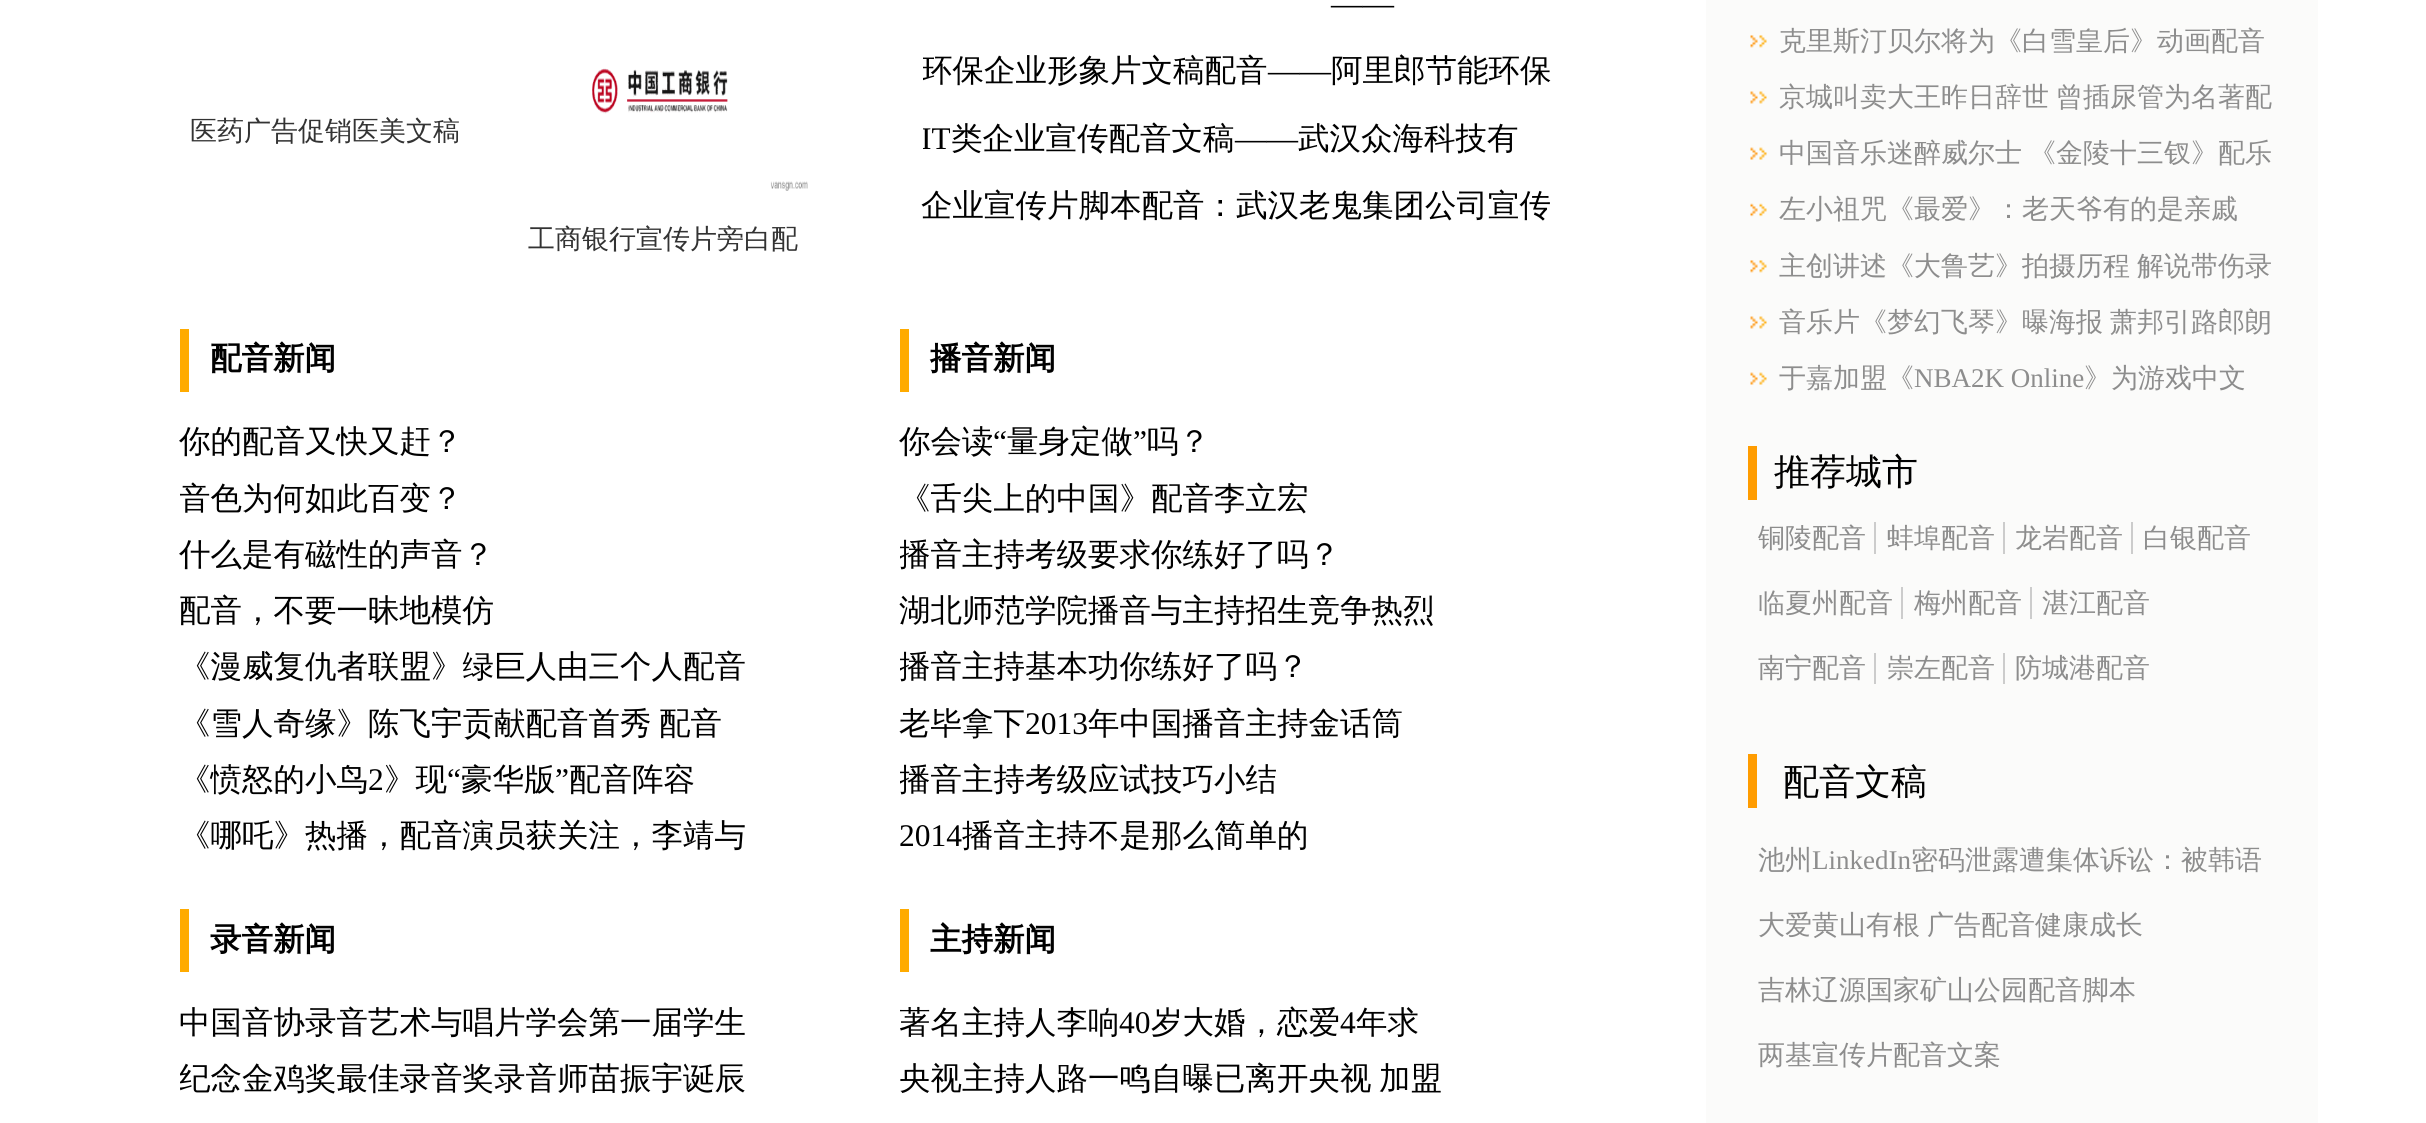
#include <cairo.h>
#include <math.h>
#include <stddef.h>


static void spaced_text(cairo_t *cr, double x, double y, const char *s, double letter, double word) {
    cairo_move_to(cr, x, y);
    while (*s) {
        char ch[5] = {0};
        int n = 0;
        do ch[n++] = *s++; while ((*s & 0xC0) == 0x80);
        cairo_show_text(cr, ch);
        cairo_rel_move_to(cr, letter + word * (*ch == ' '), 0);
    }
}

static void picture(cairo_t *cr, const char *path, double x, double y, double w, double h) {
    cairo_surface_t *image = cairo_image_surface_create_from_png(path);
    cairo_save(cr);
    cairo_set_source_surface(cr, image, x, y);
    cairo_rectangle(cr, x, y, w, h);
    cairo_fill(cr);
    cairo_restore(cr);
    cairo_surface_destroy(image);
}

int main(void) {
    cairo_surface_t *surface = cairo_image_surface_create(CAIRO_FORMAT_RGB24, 2426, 1123);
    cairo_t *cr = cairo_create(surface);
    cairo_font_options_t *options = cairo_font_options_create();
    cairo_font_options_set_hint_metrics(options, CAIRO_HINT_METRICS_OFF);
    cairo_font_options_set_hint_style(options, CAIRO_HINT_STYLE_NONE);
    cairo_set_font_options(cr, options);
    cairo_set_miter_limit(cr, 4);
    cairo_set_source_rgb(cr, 1, 1, 1);
    cairo_paint(cr);
    cairo_select_font_face(cr, "WenQuanYi Zen Hei Medium", CAIRO_FONT_SLANT_NORMAL, CAIRO_FONT_WEIGHT_NORMAL);
    cairo_set_font_size(cr, 27);
    cairo_set_source_rgb(cr, 0.2, 0.2, 0.2);
    cairo_move_to(cr, 190, 140);
    cairo_show_text(cr, "医药广告促销医美文稿");
    picture(cr, "img1.png", 592, 68, 216, 123);
    cairo_move_to(cr, 528, 248);
    cairo_show_text(cr, "工商银行宣传片旁白配");
    cairo_select_font_face(cr, "Liberation Serif", CAIRO_FONT_SLANT_NORMAL, CAIRO_FONT_WEIGHT_NORMAL);
    cairo_set_font_size(cr, 31.5);
    cairo_set_source_rgb(cr, 0, 0, 0);
    cairo_move_to(cr, 1331, 14);
    cairo_show_text(cr, "——");
    cairo_save(cr);
    cairo_rectangle(cr, 923, 38, 630, 68);
    cairo_clip(cr);
    cairo_select_font_face(cr, "WenQuanYi Zen Hei Medium", CAIRO_FONT_SLANT_NORMAL, CAIRO_FONT_WEIGHT_NORMAL);
    cairo_move_to(cr, 921, 81);
    cairo_show_text(cr, "环保企业形象片文稿配音");
    cairo_restore(cr);
    cairo_move_to(cr, 1268, 81);
    cairo_show_text(cr, "——");
    cairo_select_font_face(cr, "WenQuanYi Zen Hei Medium", CAIRO_FONT_SLANT_NORMAL, CAIRO_FONT_WEIGHT_NORMAL);
    cairo_move_to(cr, 1331, 81);
    cairo_show_text(cr, "阿里郎节能环保");
    cairo_save(cr);
    cairo_rectangle(cr, 923, 106, 630, 67);
    cairo_clip(cr);
    cairo_select_font_face(cr, "Liberation Serif", CAIRO_FONT_SLANT_NORMAL, CAIRO_FONT_WEIGHT_NORMAL);
    cairo_move_to(cr, 921, 149);
    cairo_show_text(cr, "IT");
    cairo_restore(cr);
    cairo_move_to(cr, 951, 149);
    cairo_show_text(cr, "类企业宣传配音文稿");
    cairo_select_font_face(cr, "Liberation Serif", CAIRO_FONT_SLANT_NORMAL, CAIRO_FONT_WEIGHT_NORMAL);
    cairo_move_to(cr, 1235, 149);
    cairo_show_text(cr, "——");
    cairo_select_font_face(cr, "WenQuanYi Zen Hei Medium", CAIRO_FONT_SLANT_NORMAL, CAIRO_FONT_WEIGHT_NORMAL);
    cairo_move_to(cr, 1298, 149);
    cairo_show_text(cr, "武汉众海科技有");
    cairo_move_to(cr, 921, 216);
    cairo_show_text(cr, "企业宣传片脚本配音：武汉老鬼集团公司宣传");
    cairo_set_source_rgb(cr, 1, 0.671, 0);
    cairo_rectangle(cr, 180, 329, 9, 63);
    cairo_fill(cr);
    cairo_select_font_face(cr, "WenQuanYi Zen Hei", CAIRO_FONT_SLANT_NORMAL, CAIRO_FONT_WEIGHT_BOLD);
    cairo_set_source_rgb(cr, 0, 0, 0);
    cairo_move_to(cr, 210, 369);
    cairo_show_text(cr, "配音新闻");
    cairo_select_font_face(cr, "WenQuanYi Zen Hei Medium", CAIRO_FONT_SLANT_NORMAL, CAIRO_FONT_WEIGHT_NORMAL);
    cairo_move_to(cr, 179, 452);
    cairo_show_text(cr, "你的配音又快又赶？");
    cairo_save(cr);
    cairo_rectangle(cr, 180, 470, 630, 57);
    cairo_clip(cr);
    cairo_move_to(cr, 179, 509);
    cairo_show_text(cr, "音色为何如此百变？");
    cairo_restore(cr);
    cairo_move_to(cr, 179, 565);
    cairo_show_text(cr, "什么是有磁性的声音？");
    cairo_move_to(cr, 179, 621);
    cairo_show_text(cr, "配音，不要一昧地模仿");
    cairo_move_to(cr, 179, 677);
    cairo_show_text(cr, "《漫威复仇者联盟》绿巨人由三个人配音");
    spaced_text(cr, 179, 734, "《雪人奇缘》陈飞宇贡献配音首秀 配音", 0, -2);
    cairo_move_to(cr, 179, 790);
    cairo_show_text(cr, "《愤怒的小鸟");
    cairo_select_font_face(cr, "Liberation Serif", CAIRO_FONT_SLANT_NORMAL, CAIRO_FONT_WEIGHT_NORMAL);
    cairo_move_to(cr, 368, 790);
    cairo_show_text(cr, "2");
    cairo_select_font_face(cr, "WenQuanYi Zen Hei Medium", CAIRO_FONT_SLANT_NORMAL, CAIRO_FONT_WEIGHT_NORMAL);
    cairo_move_to(cr, 384, 790);
    cairo_show_text(cr, "》现");
    cairo_select_font_face(cr, "Liberation Serif", CAIRO_FONT_SLANT_NORMAL, CAIRO_FONT_WEIGHT_NORMAL);
    cairo_move_to(cr, 447, 790);
    cairo_show_text(cr, "“");
    cairo_select_font_face(cr, "WenQuanYi Zen Hei Medium", CAIRO_FONT_SLANT_NORMAL, CAIRO_FONT_WEIGHT_NORMAL);
    cairo_move_to(cr, 461, 790);
    cairo_show_text(cr, "豪华版");
    cairo_select_font_face(cr, "Liberation Serif", CAIRO_FONT_SLANT_NORMAL, CAIRO_FONT_WEIGHT_NORMAL);
    cairo_move_to(cr, 555, 790);
    cairo_show_text(cr, "”");
    cairo_select_font_face(cr, "WenQuanYi Zen Hei Medium", CAIRO_FONT_SLANT_NORMAL, CAIRO_FONT_WEIGHT_NORMAL);
    cairo_move_to(cr, 569, 790);
    cairo_show_text(cr, "配音阵容");
    cairo_move_to(cr, 179, 846);
    cairo_show_text(cr, "《哪吒》热播，配音演员获关注，李靖与");
    cairo_set_source_rgb(cr, 1, 0.671, 0);
    cairo_rectangle(cr, 900, 329, 9, 63);
    cairo_fill(cr);
    cairo_select_font_face(cr, "WenQuanYi Zen Hei", CAIRO_FONT_SLANT_NORMAL, CAIRO_FONT_WEIGHT_BOLD);
    cairo_set_source_rgb(cr, 0, 0, 0);
    cairo_move_to(cr, 930, 369);
    cairo_show_text(cr, "播音新闻");
    cairo_select_font_face(cr, "WenQuanYi Zen Hei Medium", CAIRO_FONT_SLANT_NORMAL, CAIRO_FONT_WEIGHT_NORMAL);
    cairo_move_to(cr, 899, 452);
    cairo_show_text(cr, "你会读");
    cairo_select_font_face(cr, "Liberation Serif", CAIRO_FONT_SLANT_NORMAL, CAIRO_FONT_WEIGHT_NORMAL);
    cairo_move_to(cr, 993, 452);
    cairo_show_text(cr, "“");
    cairo_select_font_face(cr, "WenQuanYi Zen Hei Medium", CAIRO_FONT_SLANT_NORMAL, CAIRO_FONT_WEIGHT_NORMAL);
    cairo_move_to(cr, 1007, 452);
    cairo_show_text(cr, "量身定做");
    cairo_select_font_face(cr, "Liberation Serif", CAIRO_FONT_SLANT_NORMAL, CAIRO_FONT_WEIGHT_NORMAL);
    cairo_move_to(cr, 1133, 452);
    cairo_show_text(cr, "”");
    cairo_select_font_face(cr, "WenQuanYi Zen Hei Medium", CAIRO_FONT_SLANT_NORMAL, CAIRO_FONT_WEIGHT_NORMAL);
    cairo_move_to(cr, 1147, 452);
    cairo_show_text(cr, "吗？");
    cairo_move_to(cr, 899, 509);
    cairo_show_text(cr, "《舌尖上的中国》配音李立宏");
    cairo_save(cr);
    cairo_rectangle(cr, 900, 527, 630, 56);
    cairo_clip(cr);
    cairo_move_to(cr, 899, 565);
    cairo_show_text(cr, "播音主持考级要求你练好了吗？");
    cairo_restore(cr);
    cairo_move_to(cr, 899, 621);
    cairo_show_text(cr, "湖北师范学院播音与主持招生竞争热烈");
    cairo_save(cr);
    cairo_rectangle(cr, 900, 639, 630, 56);
    cairo_clip(cr);
    cairo_move_to(cr, 899, 677);
    cairo_show_text(cr, "播音主持基本功你练好了吗？");
    cairo_restore(cr);
    cairo_move_to(cr, 899, 734);
    cairo_show_text(cr, "老毕拿下");
    cairo_select_font_face(cr, "Liberation Serif", CAIRO_FONT_SLANT_NORMAL, CAIRO_FONT_WEIGHT_NORMAL);
    cairo_move_to(cr, 1025, 734);
    cairo_show_text(cr, "2013");
    cairo_select_font_face(cr, "WenQuanYi Zen Hei Medium", CAIRO_FONT_SLANT_NORMAL, CAIRO_FONT_WEIGHT_NORMAL);
    cairo_move_to(cr, 1088, 734);
    cairo_show_text(cr, "年中国播音主持金话筒");
    cairo_save(cr);
    cairo_rectangle(cr, 900, 752, 630, 56);
    cairo_clip(cr);
    cairo_move_to(cr, 899, 790);
    cairo_show_text(cr, "播音主持考级应试技巧小结");
    cairo_restore(cr);
    cairo_select_font_face(cr, "Liberation Serif", CAIRO_FONT_SLANT_NORMAL, CAIRO_FONT_WEIGHT_NORMAL);
    cairo_move_to(cr, 899, 846);
    cairo_show_text(cr, "2014");
    cairo_select_font_face(cr, "WenQuanYi Zen Hei Medium", CAIRO_FONT_SLANT_NORMAL, CAIRO_FONT_WEIGHT_NORMAL);
    cairo_move_to(cr, 962, 846);
    cairo_show_text(cr, "播音主持不是那么简单的");
    cairo_set_source_rgb(cr, 1, 0.671, 0);
    cairo_rectangle(cr, 180, 909, 9, 63);
    cairo_fill(cr);
    cairo_select_font_face(cr, "WenQuanYi Zen Hei", CAIRO_FONT_SLANT_NORMAL, CAIRO_FONT_WEIGHT_BOLD);
    cairo_set_source_rgb(cr, 0, 0, 0);
    cairo_move_to(cr, 210, 950);
    cairo_show_text(cr, "录音新闻");
    cairo_select_font_face(cr, "WenQuanYi Zen Hei Medium", CAIRO_FONT_SLANT_NORMAL, CAIRO_FONT_WEIGHT_NORMAL);
    cairo_move_to(cr, 179, 1033);
    cairo_show_text(cr, "中国音协录音艺术与唱片学会第一届学生");
    cairo_save(cr);
    cairo_rectangle(cr, 180, 1051, 630, 56);
    cairo_clip(cr);
    cairo_move_to(cr, 179, 1089);
    cairo_show_text(cr, "纪念金鸡奖最佳录音奖录音师苗振宇诞辰");
    cairo_restore(cr);
    cairo_set_source_rgb(cr, 1, 0.671, 0);
    cairo_rectangle(cr, 900, 909, 9, 63);
    cairo_fill(cr);
    cairo_select_font_face(cr, "WenQuanYi Zen Hei", CAIRO_FONT_SLANT_NORMAL, CAIRO_FONT_WEIGHT_BOLD);
    cairo_set_source_rgb(cr, 0, 0, 0);
    cairo_move_to(cr, 930, 950);
    cairo_show_text(cr, "主持新闻");
    cairo_save(cr);
    cairo_rectangle(cr, 900, 995, 630, 56);
    cairo_clip(cr);
    cairo_select_font_face(cr, "WenQuanYi Zen Hei Medium", CAIRO_FONT_SLANT_NORMAL, CAIRO_FONT_WEIGHT_NORMAL);
    cairo_move_to(cr, 899, 1033);
    cairo_show_text(cr, "著名主持人李响");
    cairo_restore(cr);
    cairo_select_font_face(cr, "Liberation Serif", CAIRO_FONT_SLANT_NORMAL, CAIRO_FONT_WEIGHT_NORMAL);
    cairo_move_to(cr, 1119, 1033);
    cairo_show_text(cr, "40");
    cairo_select_font_face(cr, "WenQuanYi Zen Hei Medium", CAIRO_FONT_SLANT_NORMAL, CAIRO_FONT_WEIGHT_NORMAL);
    cairo_move_to(cr, 1151, 1033);
    cairo_show_text(cr, "岁大婚，恋爱");
    cairo_select_font_face(cr, "Liberation Serif", CAIRO_FONT_SLANT_NORMAL, CAIRO_FONT_WEIGHT_NORMAL);
    cairo_move_to(cr, 1340, 1033);
    cairo_show_text(cr, "4");
    cairo_select_font_face(cr, "WenQuanYi Zen Hei Medium", CAIRO_FONT_SLANT_NORMAL, CAIRO_FONT_WEIGHT_NORMAL);
    cairo_move_to(cr, 1356, 1033);
    cairo_show_text(cr, "年求");
    spaced_text(cr, 899, 1089, "央视主持人路一鸣自曝已离开央视 加盟", 0, -2);
    cairo_set_source_rgb(cr, 0.984, 0.984, 0.98);
    cairo_rectangle(cr, 1706, 0, 612, 1123);
    cairo_fill(cr);
    picture(cr, "img2.png", 1750, 35, 17, 13);
    cairo_set_font_size(cr, 27);
    cairo_set_source_rgb(cr, 0.553, 0.553, 0.553);
    cairo_move_to(cr, 1779, 50);
    cairo_show_text(cr, "克里斯汀贝尔将为《白雪皇后》动画配音");
    picture(cr, "img3.png", 1750, 91, 17, 13);
    spaced_text(cr, 1779, 106, "京城叫卖大王昨日辞世 曾插尿管为名著配", 0, -1);
    picture(cr, "img4.png", 1750, 147, 17, 13);
    spaced_text(cr, 1779, 162, "中国音乐迷醉威尔士 《金陵十三钗》配乐", 0, -1);
    picture(cr, "img5.png", 1750, 203, 17, 14);
    cairo_move_to(cr, 1779, 218);
    cairo_show_text(cr, "左小祖咒《最爱》：老天爷有的是亲戚");
    picture(cr, "img2.png", 1750, 260, 17, 13);
    spaced_text(cr, 1779, 275, "主创讲述《大鲁艺》拍摄历程 解说带伤录", 0, -1);
    picture(cr, "img3.png", 1750, 316, 17, 13);
    spaced_text(cr, 1779, 331, "音乐片《梦幻飞琴》曝海报 萧邦引路郎朗", 0, -1);
    picture(cr, "img4.png", 1750, 372, 17, 13);
    cairo_move_to(cr, 1779, 387);
    cairo_show_text(cr, "于嘉加盟《");
    cairo_select_font_face(cr, "Liberation Serif", CAIRO_FONT_SLANT_NORMAL, CAIRO_FONT_WEIGHT_NORMAL);
    cairo_move_to(cr, 1914, 387);
    cairo_show_text(cr, "NBA2K Online");
    cairo_select_font_face(cr, "WenQuanYi Zen Hei Medium", CAIRO_FONT_SLANT_NORMAL, CAIRO_FONT_WEIGHT_NORMAL);
    cairo_move_to(cr, 2084, 387);
    cairo_show_text(cr, "》为游戏中文");
    cairo_set_source_rgb(cr, 1, 0.612, 0);
    cairo_rectangle(cr, 1748, 446, 9, 54);
    cairo_fill(cr);
    cairo_set_font_size(cr, 36);
    cairo_set_source_rgb(cr, 0, 0, 0);
    cairo_move_to(cr, 1774, 484);
    cairo_show_text(cr, "推荐城市");
    cairo_set_font_size(cr, 27);
    cairo_set_source_rgb(cr, 0.553, 0.553, 0.553);
    cairo_move_to(cr, 1758, 547);
    cairo_show_text(cr, "铜陵配音");
    cairo_set_source_rgb(cr, 0.8, 0.8, 0.8);
    cairo_rectangle(cr, 1874, 522, 2, 32);
    cairo_fill(cr);
    cairo_set_source_rgb(cr, 0.553, 0.553, 0.553);
    cairo_move_to(cr, 1887, 547);
    cairo_show_text(cr, "蚌埠配音");
    cairo_set_source_rgb(cr, 0.8, 0.8, 0.8);
    cairo_rectangle(cr, 2003, 522, 2, 32);
    cairo_fill(cr);
    cairo_set_source_rgb(cr, 0.553, 0.553, 0.553);
    cairo_move_to(cr, 2015, 547);
    cairo_show_text(cr, "龙岩配音");
    cairo_set_source_rgb(cr, 0.8, 0.8, 0.8);
    cairo_rectangle(cr, 2131, 522, 2, 32);
    cairo_fill(cr);
    cairo_set_source_rgb(cr, 0.553, 0.553, 0.553);
    cairo_move_to(cr, 2143, 547);
    cairo_show_text(cr, "白银配音");
    cairo_move_to(cr, 1758, 612);
    cairo_show_text(cr, "临夏州配音");
    cairo_set_source_rgb(cr, 0.8, 0.8, 0.8);
    cairo_rectangle(cr, 1901, 587, 2, 32);
    cairo_fill(cr);
    cairo_set_source_rgb(cr, 0.553, 0.553, 0.553);
    cairo_move_to(cr, 1914, 612);
    cairo_show_text(cr, "梅州配音");
    cairo_set_source_rgb(cr, 0.8, 0.8, 0.8);
    cairo_rectangle(cr, 2030, 587, 2, 32);
    cairo_fill(cr);
    cairo_set_source_rgb(cr, 0.553, 0.553, 0.553);
    cairo_move_to(cr, 2042, 612);
    cairo_show_text(cr, "湛江配音");
    cairo_move_to(cr, 1758, 677);
    cairo_show_text(cr, "南宁配音");
    cairo_set_source_rgb(cr, 0.8, 0.8, 0.8);
    cairo_rectangle(cr, 1874, 653, 2, 31);
    cairo_fill(cr);
    cairo_set_source_rgb(cr, 0.553, 0.553, 0.553);
    cairo_move_to(cr, 1887, 677);
    cairo_show_text(cr, "崇左配音");
    cairo_set_source_rgb(cr, 0.8, 0.8, 0.8);
    cairo_rectangle(cr, 2003, 653, 2, 31);
    cairo_fill(cr);
    cairo_set_source_rgb(cr, 0.553, 0.553, 0.553);
    cairo_move_to(cr, 2015, 677);
    cairo_show_text(cr, "防城港配音");
    cairo_set_source_rgb(cr, 1, 0.612, 0);
    cairo_rectangle(cr, 1748, 754, 9, 54);
    cairo_fill(cr);
    cairo_set_font_size(cr, 36);
    cairo_set_source_rgb(cr, 0, 0, 0);
    cairo_move_to(cr, 1783, 794);
    cairo_show_text(cr, "配音文稿");
    cairo_set_font_size(cr, 27);
    cairo_set_source_rgb(cr, 0.553, 0.553, 0.553);
    cairo_move_to(cr, 1758, 869);
    cairo_show_text(cr, "池州");
    cairo_select_font_face(cr, "Liberation Serif", CAIRO_FONT_SLANT_NORMAL, CAIRO_FONT_WEIGHT_NORMAL);
    cairo_move_to(cr, 1812, 869);
    cairo_show_text(cr, "LinkedIn");
    cairo_select_font_face(cr, "WenQuanYi Zen Hei Medium", CAIRO_FONT_SLANT_NORMAL, CAIRO_FONT_WEIGHT_NORMAL);
    cairo_move_to(cr, 1911, 869);
    cairo_show_text(cr, "密码泄露遭集体诉讼：被韩语");
    spaced_text(cr, 1758, 934, "大爱黄山有根 广告配音健康成长", 0, -1);
    cairo_move_to(cr, 1758, 999);
    cairo_show_text(cr, "吉林辽源国家矿山公园配音脚本");
    cairo_move_to(cr, 1758, 1064);
    cairo_show_text(cr, "两基宣传片配音文案");
    cairo_surface_write_to_png(surface, "page.png");
    cairo_font_options_destroy(options);
    cairo_destroy(cr);
    cairo_surface_destroy(surface);
    return 0;
}
